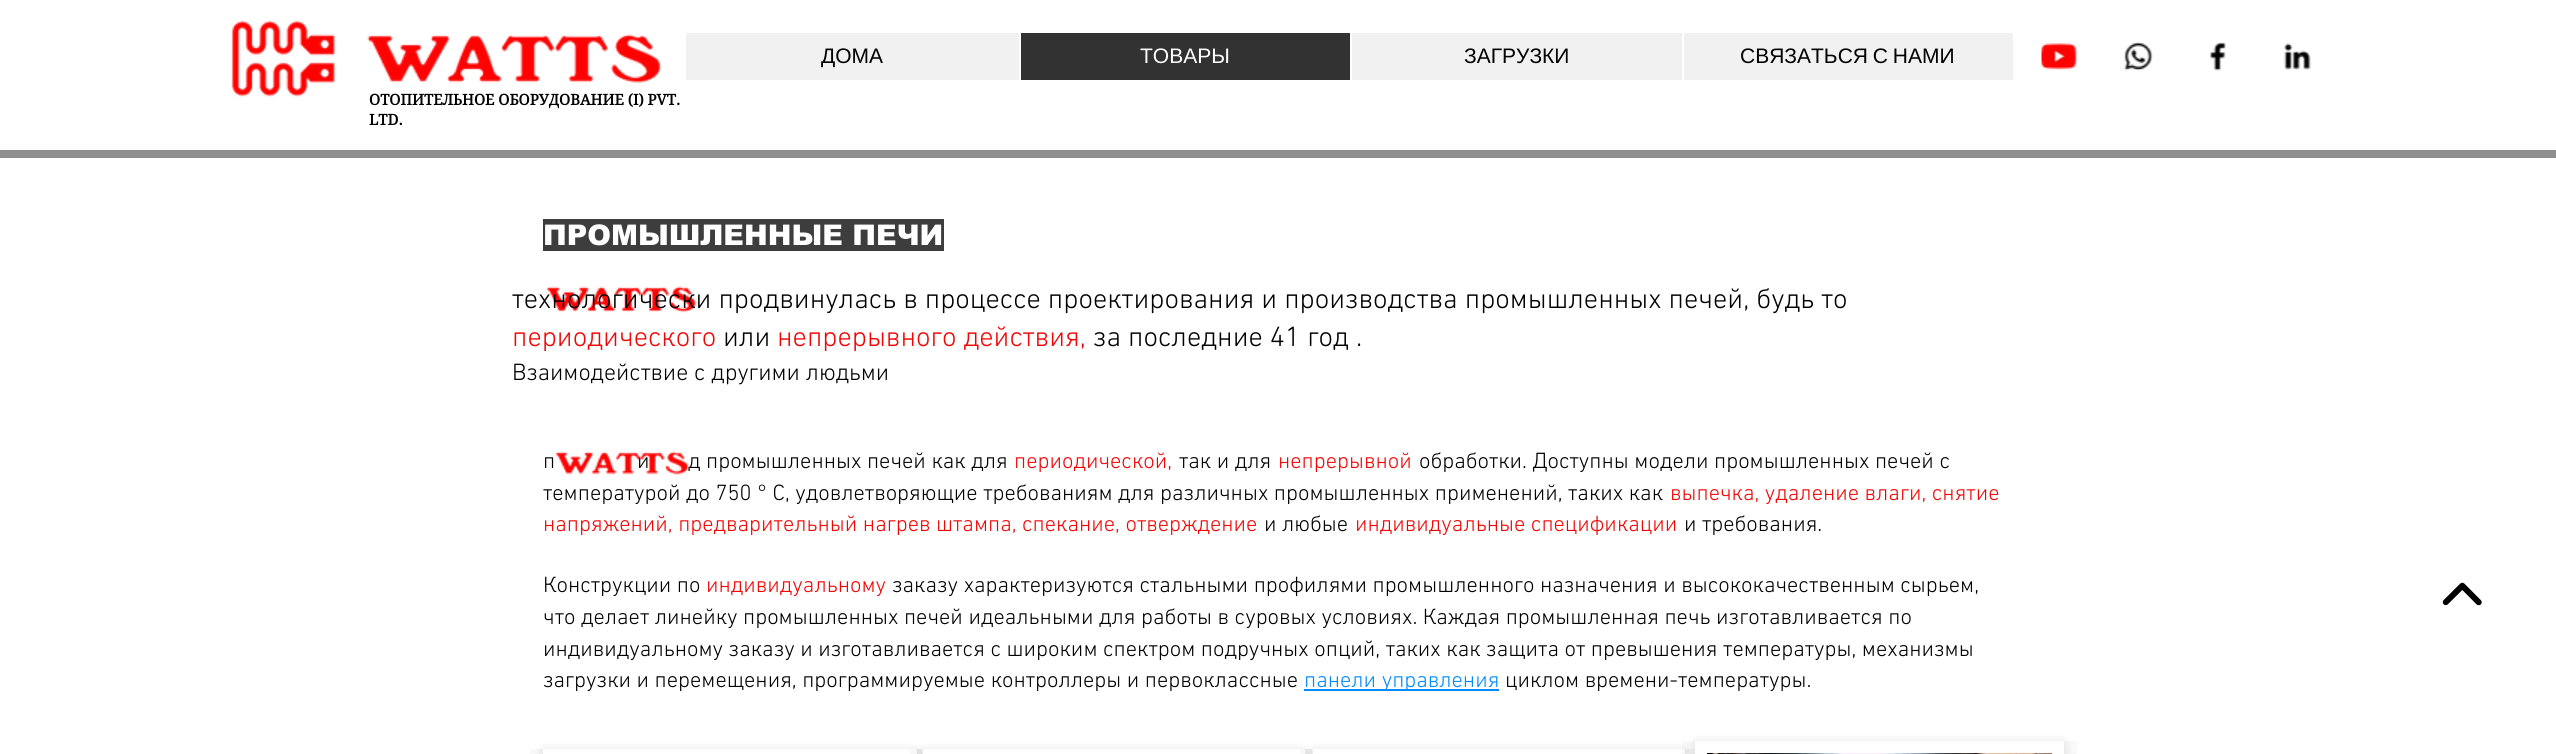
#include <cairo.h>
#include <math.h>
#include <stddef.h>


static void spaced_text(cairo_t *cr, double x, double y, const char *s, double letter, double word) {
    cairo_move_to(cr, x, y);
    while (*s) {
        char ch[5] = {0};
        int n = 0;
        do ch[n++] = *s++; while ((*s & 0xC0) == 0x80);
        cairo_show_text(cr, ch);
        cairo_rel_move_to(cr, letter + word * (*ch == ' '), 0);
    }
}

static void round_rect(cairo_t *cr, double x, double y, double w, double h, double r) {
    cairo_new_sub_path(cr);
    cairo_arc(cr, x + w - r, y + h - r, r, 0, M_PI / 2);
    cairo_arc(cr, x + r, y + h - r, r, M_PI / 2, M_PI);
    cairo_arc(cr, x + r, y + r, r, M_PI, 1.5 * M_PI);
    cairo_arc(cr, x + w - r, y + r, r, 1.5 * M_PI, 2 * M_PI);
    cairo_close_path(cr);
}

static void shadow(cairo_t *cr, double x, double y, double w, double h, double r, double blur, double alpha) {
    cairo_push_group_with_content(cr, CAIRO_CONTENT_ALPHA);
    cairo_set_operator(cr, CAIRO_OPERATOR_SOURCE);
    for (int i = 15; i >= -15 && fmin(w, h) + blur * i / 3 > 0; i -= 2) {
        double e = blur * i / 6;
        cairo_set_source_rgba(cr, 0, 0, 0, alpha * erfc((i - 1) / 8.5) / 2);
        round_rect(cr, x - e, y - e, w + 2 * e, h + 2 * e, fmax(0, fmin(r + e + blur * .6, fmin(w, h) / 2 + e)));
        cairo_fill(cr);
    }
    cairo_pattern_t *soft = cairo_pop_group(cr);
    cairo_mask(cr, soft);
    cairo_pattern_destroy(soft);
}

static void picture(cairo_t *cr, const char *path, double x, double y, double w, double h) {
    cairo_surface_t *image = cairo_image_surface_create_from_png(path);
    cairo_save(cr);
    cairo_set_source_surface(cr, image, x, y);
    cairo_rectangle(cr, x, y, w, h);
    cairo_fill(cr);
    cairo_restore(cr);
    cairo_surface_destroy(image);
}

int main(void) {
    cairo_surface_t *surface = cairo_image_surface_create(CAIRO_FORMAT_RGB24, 2556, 754);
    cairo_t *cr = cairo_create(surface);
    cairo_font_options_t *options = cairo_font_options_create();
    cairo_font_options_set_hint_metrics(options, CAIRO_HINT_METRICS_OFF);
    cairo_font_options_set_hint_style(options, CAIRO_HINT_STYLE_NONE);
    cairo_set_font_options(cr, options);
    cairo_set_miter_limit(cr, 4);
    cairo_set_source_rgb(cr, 1, 1, 1);
    cairo_paint(cr);
    picture(cr, "img1.png", 231, 20, 430, 77);
    cairo_set_source_rgb(cr, 0.945, 0.945, 0.945);
    cairo_rectangle(cr, 686, 33, 1327, 47);
    cairo_fill(cr);
    cairo_select_font_face(cr, "Liberation Sans", CAIRO_FONT_SLANT_NORMAL, CAIRO_FONT_WEIGHT_NORMAL);
    cairo_set_font_size(cr, 21);
    cairo_set_source_rgb(cr, 0, 0, 0);
    cairo_move_to(cr, 821, 63);
    cairo_show_text(cr, "ДОМА");
    cairo_set_source_rgb(cr, 0.196, 0.196, 0.196);
    cairo_rectangle(cr, 1021, 33, 329, 47);
    cairo_fill(cr);
    cairo_set_source_rgb(cr, 1, 1, 1);
    cairo_rectangle(cr, 1019, 33, 2, 47);
    cairo_fill(cr);
    cairo_move_to(cr, 1140, 63);
    cairo_show_text(cr, "ТОВАРЫ");
    cairo_rectangle(cr, 1350, 33, 2, 47);
    cairo_fill(cr);
    cairo_set_source_rgb(cr, 0, 0, 0);
    cairo_move_to(cr, 1464, 63);
    cairo_show_text(cr, "ЗАГРУЗКИ");
    cairo_set_source_rgb(cr, 1, 1, 1);
    cairo_rectangle(cr, 1682, 33, 2, 47);
    cairo_fill(cr);
    cairo_set_source_rgb(cr, 0, 0, 0);
    spaced_text(cr, 1740, 63, "СВЯЗАТЬСЯ С НАМИ", 0, -1);
    picture(cr, "img2.png", 2041, 43, 36, 27);
    picture(cr, "img3.png", 2124, 42, 29, 29);
    picture(cr, "img4.png", 2209, 42, 18, 29);
    picture(cr, "img5.png", 2283, 43, 28, 27);
    cairo_select_font_face(cr, "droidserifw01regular", CAIRO_FONT_SLANT_NORMAL, CAIRO_FONT_WEIGHT_BOLD);
    cairo_set_font_size(cr, 15);
    cairo_move_to(cr, 369, 105);
    cairo_show_text(cr, "ОТОПИТЕЛЬНОЕ ОБОРУДОВАНИЕ (I) PVT.");
    cairo_move_to(cr, 369, 125);
    cairo_show_text(cr, "LTD.");
    cairo_set_source_rgb(cr, 0.561, 0.561, 0.561);
    cairo_rectangle(cr, 0, 150, 2556, 8);
    cairo_fill(cr);
    cairo_set_source_rgb(cr, 0.239, 0.239, 0.239);
    cairo_rectangle(cr, 543, 219, 401, 32);
    cairo_fill(cr);
    cairo_select_font_face(cr, "arial Black", CAIRO_FONT_SLANT_NORMAL, CAIRO_FONT_WEIGHT_NORMAL);
    cairo_set_font_size(cr, 28.5);
    cairo_set_source_rgb(cr, 1, 1, 1);
    cairo_move_to(cr, 543, 245);
    cairo_show_text(cr, "ПРОМЫШЛЕННЫЕ ПЕЧИ");
    picture(cr, "img6.png", 547, 286, 150, 27);
    cairo_select_font_face(cr, "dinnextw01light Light", CAIRO_FONT_SLANT_NORMAL, CAIRO_FONT_WEIGHT_NORMAL);
    cairo_set_source_rgb(cr, 0, 0, 0);
    cairo_move_to(cr, 512, 308);
    cairo_show_text(cr, "технологически продвинулась в процессе проектирования и производства промышленных печей, будь то");
    cairo_set_source_rgb(cr, 0.941, 0.02, 0.02);
    cairo_move_to(cr, 512, 346);
    cairo_show_text(cr, "периодического");
    cairo_set_source_rgb(cr, 0, 0, 0);
    cairo_move_to(cr, 723, 346);
    cairo_show_text(cr, "или");
    cairo_set_source_rgb(cr, 0.941, 0.02, 0.02);
    cairo_move_to(cr, 777, 346);
    cairo_show_text(cr, "непрерывного действия,");
    cairo_set_source_rgb(cr, 0, 0, 0);
    cairo_move_to(cr, 1093, 346);
    cairo_show_text(cr, "за последние 41 год .");
    cairo_set_font_size(cr, 24);
    cairo_move_to(cr, 512, 380);
    cairo_show_text(cr, "Взаимодействие с другими людьми");
    cairo_set_font_size(cr, 22.5);
    cairo_move_to(cr, 637, 468);
    cairo_show_text(cr, "и");
    cairo_move_to(cr, 688, 468);
    cairo_show_text(cr, "д промышленных печей как для");
    picture(cr, "img7.png", 555, 451, 134, 24);
    cairo_move_to(cr, 543, 468);
    cairo_show_text(cr, "п");
    cairo_set_source_rgb(cr, 0.941, 0.02, 0.02);
    cairo_move_to(cr, 1014, 468);
    cairo_show_text(cr, "периодической,");
    cairo_set_source_rgb(cr, 0, 0, 0);
    cairo_move_to(cr, 1179, 468);
    cairo_show_text(cr, "так и для");
    cairo_set_source_rgb(cr, 0.941, 0.02, 0.02);
    cairo_move_to(cr, 1278, 468);
    cairo_show_text(cr, "непрерывной");
    cairo_set_source_rgb(cr, 0, 0, 0);
    cairo_move_to(cr, 1419, 468);
    cairo_show_text(cr, "обработки. Доступны модели промышленных печей с");
    cairo_move_to(cr, 543, 500);
    cairo_show_text(cr, "температурой до 750 ° C, удовлетворяющие требованиям для различных промышленных применений, таких как");
    cairo_set_source_rgb(cr, 0.941, 0.02, 0.02);
    cairo_move_to(cr, 1670, 500);
    cairo_show_text(cr, "выпечка, удаление влаги, снятие");
    cairo_move_to(cr, 543, 531);
    cairo_show_text(cr, "напряжений, предварительный нагрев штампа, спекание, отверждение");
    cairo_set_source_rgb(cr, 0, 0, 0);
    cairo_move_to(cr, 1264, 531);
    cairo_show_text(cr, "и любые");
    cairo_set_source_rgb(cr, 0.941, 0.02, 0.02);
    cairo_move_to(cr, 1355, 531);
    cairo_show_text(cr, "индивидуальные спецификации");
    cairo_set_source_rgb(cr, 0, 0, 0);
    cairo_move_to(cr, 1684, 531);
    cairo_show_text(cr, "и требования.");
    cairo_move_to(cr, 543, 592);
    cairo_show_text(cr, "Конструкции по");
    cairo_set_source_rgb(cr, 0.941, 0.02, 0.02);
    cairo_move_to(cr, 706, 592);
    cairo_show_text(cr, "индивидуальному");
    cairo_set_source_rgb(cr, 0, 0, 0);
    cairo_move_to(cr, 892, 592);
    cairo_show_text(cr, "заказу характеризуются стальными профилями промышленного назначения и высококачественным сырьем,");
    cairo_move_to(cr, 543, 624);
    cairo_show_text(cr, "что делает линейку промышленных печей идеальными для работы в суровых условиях. Каждая промышленная печь изготавливается по");
    cairo_move_to(cr, 543, 656);
    cairo_show_text(cr, "индивидуальному заказу и изготавливается с широким спектром подручных опций, таких как защита от превышения температуры, механизмы");
    cairo_move_to(cr, 543, 687);
    cairo_show_text(cr, "загрузки и перемещения, программируемые контроллеры и первоклассные");
    cairo_set_source_rgb(cr, 0, 0.541, 0.988);
    cairo_rectangle(cr, 1304, 689, 195, 2);
    cairo_fill(cr);
    cairo_move_to(cr, 1304, 687);
    cairo_show_text(cr, "панели управления");
    cairo_set_source_rgb(cr, 0, 0, 0);
    cairo_move_to(cr, 1505, 687);
    cairo_show_text(cr, "циклом времени-температуры.");
    cairo_set_source_rgb(cr, 0, 0, 0);
    shadow(cr, 543, 749, 374, 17, 0, 4, 0.1);
    cairo_set_source_rgb(cr, 1, 1, 1);
    cairo_rectangle(cr, 543, 749, 374, 5);
    cairo_fill(cr);
    picture(cr, "img8.png", 530, 749, 13, 5);
    picture(cr, "img9.png", 917, 749, 6, 5);
    cairo_set_source_rgb(cr, 0, 0, 0);
    shadow(cr, 923, 749, 382, 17, 0, 4, 0.1);
    cairo_set_source_rgb(cr, 1, 1, 1);
    cairo_rectangle(cr, 923, 749, 382, 5);
    cairo_fill(cr);
    picture(cr, "img10.png", 910, 749, 12, 5);
    picture(cr, "img11.png", 1305, 749, 8, 5);
    cairo_set_source_rgb(cr, 0, 0, 0);
    shadow(cr, 1313, 749, 372, 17, 0, 4, 0.1);
    cairo_set_source_rgb(cr, 1, 1, 1);
    cairo_rectangle(cr, 1313, 749, 372, 5);
    cairo_fill(cr);
    picture(cr, "img12.png", 1300, 749, 12, 5);
    picture(cr, "img13.png", 1685, 749, 10, 5);
    cairo_set_source_rgb(cr, 0, 0, 0);
    shadow(cr, 1695, 741, 369, 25, 0, 4, 0.1);
    cairo_set_source_rgb(cr, 1, 1, 1);
    cairo_rectangle(cr, 1695, 741, 369, 13);
    cairo_fill(cr);
    picture(cr, "img14.png", 1707, 753, 345, 1);
    picture(cr, "img15.png", 1682, 741, 13, 13);
    picture(cr, "img16.png", 2064, 741, 13, 13);
    picture(cr, "img17.png", 2442, 582, 40, 24);
    cairo_surface_write_to_png(surface, "page.png");
    cairo_font_options_destroy(options);
    cairo_destroy(cr);
    cairo_surface_destroy(surface);
    return 0;
}
